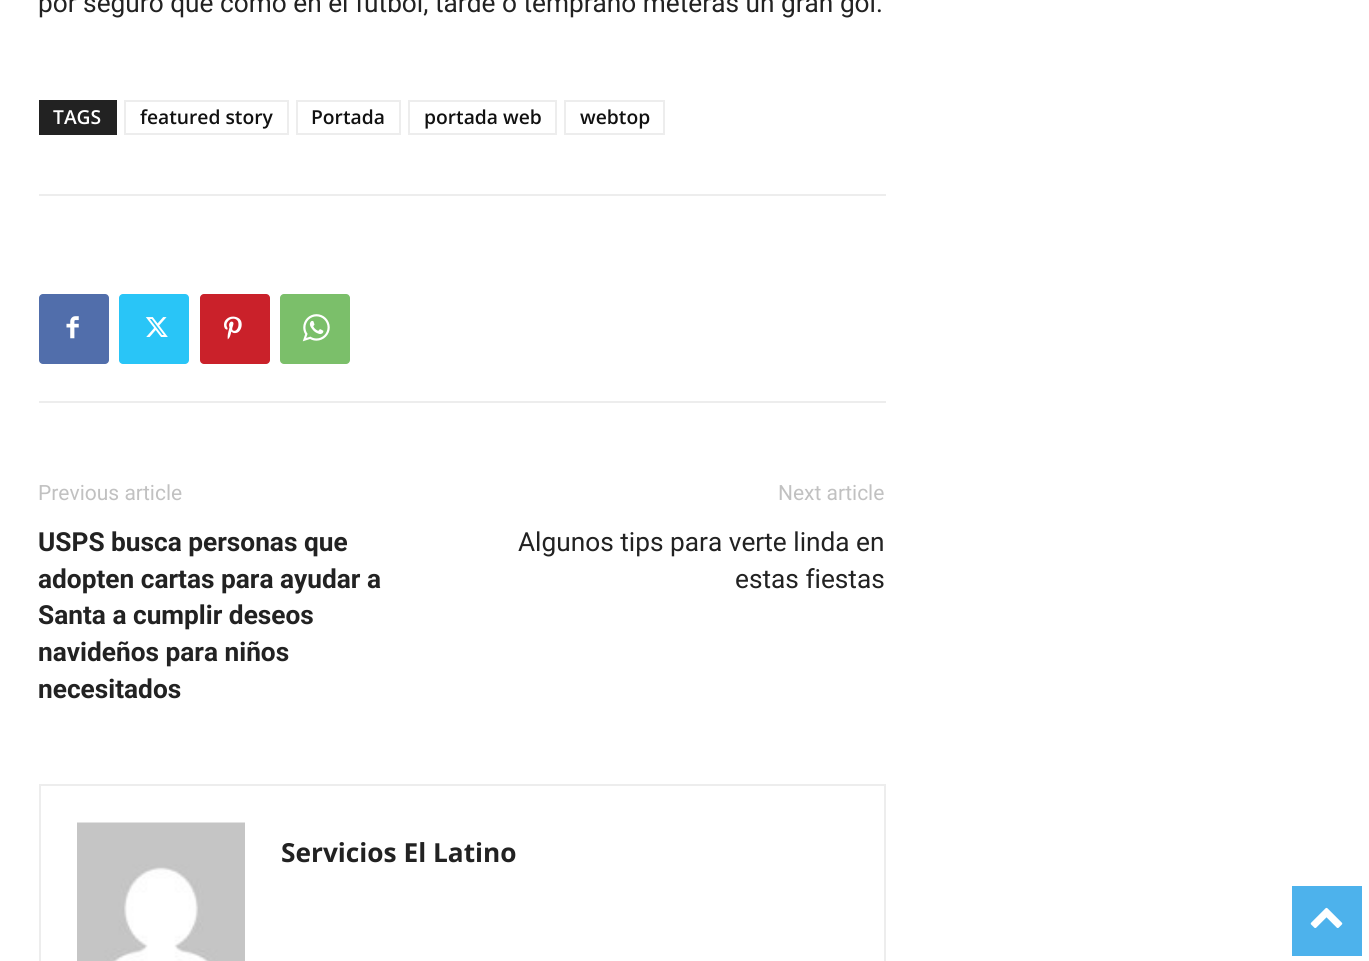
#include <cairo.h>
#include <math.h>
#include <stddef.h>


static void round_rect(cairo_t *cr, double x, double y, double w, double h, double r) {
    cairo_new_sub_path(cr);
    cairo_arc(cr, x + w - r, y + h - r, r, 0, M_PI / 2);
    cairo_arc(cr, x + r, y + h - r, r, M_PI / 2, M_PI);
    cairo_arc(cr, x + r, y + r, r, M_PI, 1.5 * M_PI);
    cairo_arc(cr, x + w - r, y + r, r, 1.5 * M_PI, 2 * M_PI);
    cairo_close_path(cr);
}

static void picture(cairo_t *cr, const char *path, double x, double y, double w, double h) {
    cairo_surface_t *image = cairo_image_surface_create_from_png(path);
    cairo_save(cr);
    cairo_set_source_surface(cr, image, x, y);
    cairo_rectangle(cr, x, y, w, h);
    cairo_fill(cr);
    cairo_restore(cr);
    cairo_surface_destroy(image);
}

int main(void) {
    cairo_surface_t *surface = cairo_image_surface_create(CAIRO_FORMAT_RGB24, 1369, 961);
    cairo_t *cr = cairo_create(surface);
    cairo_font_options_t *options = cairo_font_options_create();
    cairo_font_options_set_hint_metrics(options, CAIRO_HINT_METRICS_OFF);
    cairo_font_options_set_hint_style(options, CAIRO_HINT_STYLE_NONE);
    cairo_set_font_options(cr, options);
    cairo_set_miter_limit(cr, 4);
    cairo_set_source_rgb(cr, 1, 1, 1);
    cairo_paint(cr);
    cairo_select_font_face(cr, "Roboto", CAIRO_FONT_SLANT_NORMAL, CAIRO_FONT_WEIGHT_NORMAL);
    cairo_set_font_size(cr, 26.25);
    cairo_set_source_rgb(cr, 0.133, 0.133, 0.133);
    cairo_move_to(cr, 38, 12);
    cairo_show_text(cr, "por seguro que como en el fútbol, tarde o temprano meterás un gran gol.");
    cairo_rectangle(cr, 39, 100, 78, 35);
    cairo_fill(cr);
    cairo_select_font_face(cr, "Open Sans SemiBold", CAIRO_FONT_SLANT_NORMAL, CAIRO_FONT_WEIGHT_NORMAL);
    cairo_set_font_size(cr, 19.25);
    cairo_set_source_rgb(cr, 1, 1, 1);
    cairo_move_to(cr, 53, 124);
    cairo_show_text(cr, "TAGS");
    cairo_rectangle(cr, 125, 101, 163, 33);
    cairo_set_source_rgb(cr, 0.929, 0.929, 0.929);
    cairo_stroke(cr);
    cairo_set_source_rgb(cr, 0.067, 0.067, 0.067);
    cairo_move_to(cr, 140, 124);
    cairo_show_text(cr, "featured story");
    cairo_rectangle(cr, 297, 101, 103, 33);
    cairo_set_source_rgb(cr, 0.929, 0.929, 0.929);
    cairo_stroke(cr);
    cairo_set_source_rgb(cr, 0.067, 0.067, 0.067);
    cairo_move_to(cr, 311, 124);
    cairo_show_text(cr, "Portada");
    cairo_rectangle(cr, 409, 101, 147, 33);
    cairo_set_source_rgb(cr, 0.929, 0.929, 0.929);
    cairo_stroke(cr);
    cairo_set_source_rgb(cr, 0.067, 0.067, 0.067);
    cairo_move_to(cr, 424, 124);
    cairo_show_text(cr, "portada web");
    cairo_rectangle(cr, 565, 101, 99, 33);
    cairo_set_source_rgb(cr, 0.929, 0.929, 0.929);
    cairo_stroke(cr);
    cairo_set_source_rgb(cr, 0.067, 0.067, 0.067);
    cairo_move_to(cr, 580, 124);
    cairo_show_text(cr, "webtop");
    cairo_set_source_rgb(cr, 0.929, 0.929, 0.929);
    cairo_rectangle(cr, 39, 194, 847, 2);
    cairo_fill(cr);
    cairo_rectangle(cr, 39, 401, 847, 2);
    cairo_fill(cr);
    cairo_set_source_rgb(cr, 0.318, 0.431, 0.671);
    round_rect(cr, 39, 294, 70, 70, 4);
    cairo_fill(cr);
    picture(cr, "img1.png", 66, 316, 13, 23);
    cairo_set_source_rgb(cr, 0.161, 0.773, 0.965);
    round_rect(cr, 119, 294, 70, 70, 4);
    cairo_fill(cr);
    picture(cr, "img2.png", 145, 317, 23, 20);
    cairo_set_source_rgb(cr, 0.792, 0.129, 0.165);
    round_rect(cr, 200, 294, 70, 70, 4);
    cairo_fill(cr);
    picture(cr, "img3.png", 224, 316, 18, 24);
    cairo_set_source_rgb(cr, 0.482, 0.749, 0.416);
    round_rect(cr, 280, 294, 70, 70, 4);
    cairo_fill(cr);
    picture(cr, "img4.png", 302, 314, 28, 28);
    cairo_select_font_face(cr, "Roboto", CAIRO_FONT_SLANT_NORMAL, CAIRO_FONT_WEIGHT_NORMAL);
    cairo_set_font_size(cr, 21);
    cairo_set_source_rgb(cr, 0.757, 0.757, 0.757);
    cairo_move_to(cr, 38, 500);
    cairo_show_text(cr, "Previous article");
    cairo_select_font_face(cr, "Roboto", CAIRO_FONT_SLANT_NORMAL, CAIRO_FONT_WEIGHT_BOLD);
    cairo_set_font_size(cr, 26.25);
    cairo_set_source_rgb(cr, 0.133, 0.133, 0.133);
    cairo_move_to(cr, 38, 551);
    cairo_show_text(cr, "USPS busca personas que");
    cairo_move_to(cr, 38, 588);
    cairo_show_text(cr, "adopten cartas para ayudar a");
    cairo_move_to(cr, 38, 624);
    cairo_show_text(cr, "Santa a cumplir deseos");
    cairo_move_to(cr, 38, 661);
    cairo_show_text(cr, "navideños para niños");
    cairo_move_to(cr, 38, 698);
    cairo_show_text(cr, "necesitados");
    cairo_select_font_face(cr, "Roboto", CAIRO_FONT_SLANT_NORMAL, CAIRO_FONT_WEIGHT_NORMAL);
    cairo_set_font_size(cr, 21);
    cairo_set_source_rgb(cr, 0.757, 0.757, 0.757);
    cairo_move_to(cr, 778, 500);
    cairo_show_text(cr, "Next article");
    cairo_set_font_size(cr, 26.25);
    cairo_set_source_rgb(cr, 0.133, 0.133, 0.133);
    cairo_move_to(cr, 518, 551);
    cairo_show_text(cr, "Algunos tips para verte linda en");
    cairo_move_to(cr, 735, 588);
    cairo_show_text(cr, "estas fiestas");
    cairo_rectangle(cr, 40, 785, 845, 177);
    cairo_set_source_rgb(cr, 0.929, 0.929, 0.929);
    cairo_stroke(cr);
    picture(cr, "img5.png", 77, 822, 168, 139);
    cairo_select_font_face(cr, "Open Sans", CAIRO_FONT_SLANT_NORMAL, CAIRO_FONT_WEIGHT_BOLD);
    cairo_set_source_rgb(cr, 0.133, 0.133, 0.133);
    cairo_move_to(cr, 281, 862);
    cairo_show_text(cr, "Servicios El Latino");
    cairo_set_source_rgb(cr, 0.302, 0.698, 0.925);
    cairo_rectangle(cr, 1292, 886, 70, 70);
    cairo_fill(cr);
    picture(cr, "img6.png", 1310, 907, 33, 21);
    cairo_surface_write_to_png(surface, "page.png");
    cairo_font_options_destroy(options);
    cairo_destroy(cr);
    cairo_surface_destroy(surface);
    return 0;
}
